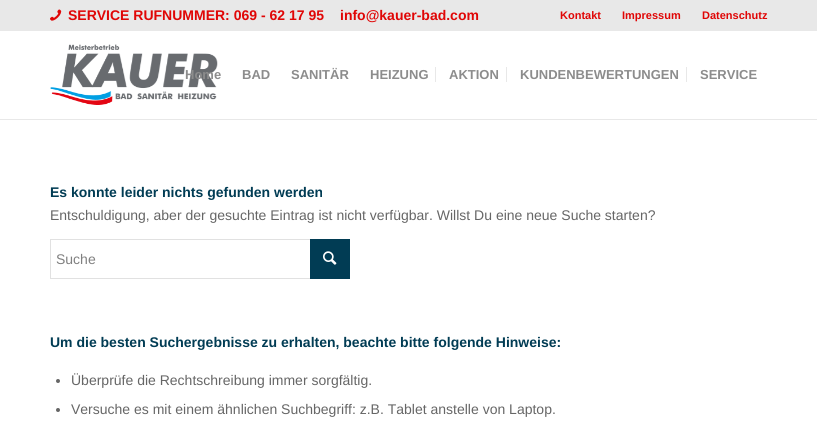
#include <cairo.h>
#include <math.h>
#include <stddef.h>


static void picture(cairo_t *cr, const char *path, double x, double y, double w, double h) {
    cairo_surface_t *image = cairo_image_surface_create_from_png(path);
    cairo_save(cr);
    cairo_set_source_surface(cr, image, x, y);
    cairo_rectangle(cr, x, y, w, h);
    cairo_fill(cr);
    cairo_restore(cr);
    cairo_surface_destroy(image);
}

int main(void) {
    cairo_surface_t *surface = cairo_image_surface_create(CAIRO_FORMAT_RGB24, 817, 433);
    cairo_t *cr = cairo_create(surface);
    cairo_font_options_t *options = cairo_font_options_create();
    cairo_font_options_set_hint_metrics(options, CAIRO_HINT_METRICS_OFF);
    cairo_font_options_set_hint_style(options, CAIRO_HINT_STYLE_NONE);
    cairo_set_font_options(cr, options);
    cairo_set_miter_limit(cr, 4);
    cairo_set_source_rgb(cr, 1, 1, 1);
    cairo_paint(cr);
    cairo_set_source_rgb(cr, 0.91, 0.91, 0.91);
    cairo_rectangle(cr, 0, 0, 817, 31);
    cairo_fill(cr);
    picture(cr, "img1.png", 50, 9, 12, 12);
    cairo_select_font_face(cr, "Liberation Sans", CAIRO_FONT_SLANT_NORMAL, CAIRO_FONT_WEIGHT_BOLD);
    cairo_set_font_size(cr, 14);
    cairo_set_source_rgb(cr, 0.878, 0.027, 0.027);
    cairo_move_to(cr, 68, 20);
    cairo_show_text(cr, "SERVICE RUFNUMMER: 069 - 62 17 95");
    cairo_move_to(cr, 340, 20);
    cairo_show_text(cr, "info@kauer-bad.com");
    cairo_set_font_size(cr, 11);
    cairo_move_to(cr, 560, 19);
    cairo_show_text(cr, "Kontakt");
    cairo_move_to(cr, 622, 19);
    cairo_show_text(cr, "Impressum");
    cairo_move_to(cr, 702, 19);
    cairo_show_text(cr, "Datenschutz");
    cairo_set_source_rgb(cr, 0.91, 0.91, 0.91);
    cairo_rectangle(cr, 0, 119, 817, 1);
    cairo_fill(cr);
    picture(cr, "img2.png", 50, 44, 168, 61);
    cairo_set_font_size(cr, 13);
    cairo_set_source_rgb(cr, 0.549, 0.549, 0.549);
    cairo_move_to(cr, 185, 79);
    cairo_show_text(cr, "Home");
    cairo_move_to(cr, 242, 79);
    cairo_show_text(cr, "BAD");
    cairo_move_to(cr, 291, 79);
    cairo_show_text(cr, "SANITÄR");
    cairo_move_to(cr, 370, 79);
    cairo_show_text(cr, "HEIZUNG");
    cairo_move_to(cr, 449, 79);
    cairo_show_text(cr, "AKTION");
    cairo_set_source_rgb(cr, 0.91, 0.91, 0.91);
    cairo_rectangle(cr, 435, 67, 1, 15);
    cairo_fill(cr);
    cairo_set_source_rgb(cr, 0.549, 0.549, 0.549);
    cairo_move_to(cr, 520, 79);
    cairo_show_text(cr, "KUNDENBEWERTUNGEN");
    cairo_set_source_rgb(cr, 0.91, 0.91, 0.91);
    cairo_rectangle(cr, 506, 67, 1, 15);
    cairo_fill(cr);
    cairo_set_source_rgb(cr, 0.549, 0.549, 0.549);
    cairo_move_to(cr, 700, 79);
    cairo_show_text(cr, "SERVICE");
    cairo_set_source_rgb(cr, 0.91, 0.91, 0.91);
    cairo_rectangle(cr, 686, 67, 1, 15);
    cairo_fill(cr);
    cairo_set_font_size(cr, 14);
    cairo_set_source_rgb(cr, 0.004, 0.235, 0.329);
    cairo_move_to(cr, 50, 197);
    cairo_show_text(cr, "Es konnte leider nichts gefunden werden");
    cairo_select_font_face(cr, "Liberation Sans", CAIRO_FONT_SLANT_NORMAL, CAIRO_FONT_WEIGHT_NORMAL);
    cairo_set_source_rgb(cr, 0.4, 0.4, 0.4);
    cairo_move_to(cr, 50, 220);
    cairo_show_text(cr, "Entschuldigung, aber der gesuchte Eintrag ist nicht verfügbar. Willst Du eine neue Suche starten?");
    cairo_rectangle(cr, 50.5, 239.5, 299, 39);
    cairo_set_source_rgb(cr, 0.882, 0.882, 0.882);
    cairo_set_line_width(cr, 1);
    cairo_stroke(cr);
    cairo_set_source_rgb(cr, 0.502, 0.502, 0.502);
    cairo_move_to(cr, 56, 264);
    cairo_show_text(cr, "Suche");
    cairo_set_source_rgb(cr, 0.004, 0.235, 0.329);
    cairo_rectangle(cr, 310, 239, 40, 40);
    cairo_fill(cr);
    picture(cr, "img3.png", 323, 251, 14, 14);
    cairo_select_font_face(cr, "Liberation Sans", CAIRO_FONT_SLANT_NORMAL, CAIRO_FONT_WEIGHT_BOLD);
    cairo_move_to(cr, 50, 347);
    cairo_show_text(cr, "Um die besten Suchergebnisse zu erhalten, beachte bitte folgende Hinweise:");
    cairo_set_source_rgb(cr, 0.4, 0.4, 0.4);
    cairo_new_path(cr);
    cairo_arc(cr, 58, 381, 2, 0, 2 * M_PI);
    cairo_fill(cr);
    cairo_select_font_face(cr, "Liberation Sans", CAIRO_FONT_SLANT_NORMAL, CAIRO_FONT_WEIGHT_NORMAL);
    cairo_move_to(cr, 71, 385);
    cairo_show_text(cr, "Überprüfe die Rechtschreibung immer sorgfältig.");
    cairo_new_path(cr);
    cairo_arc(cr, 58, 410, 2, 0, 2 * M_PI);
    cairo_fill(cr);
    cairo_move_to(cr, 71, 414);
    cairo_show_text(cr, "Versuche es mit einem ähnlichen Suchbegriff: z.B. Tablet anstelle von Laptop.");
    cairo_surface_write_to_png(surface, "page.png");
    cairo_font_options_destroy(options);
    cairo_destroy(cr);
    cairo_surface_destroy(surface);
    return 0;
}
